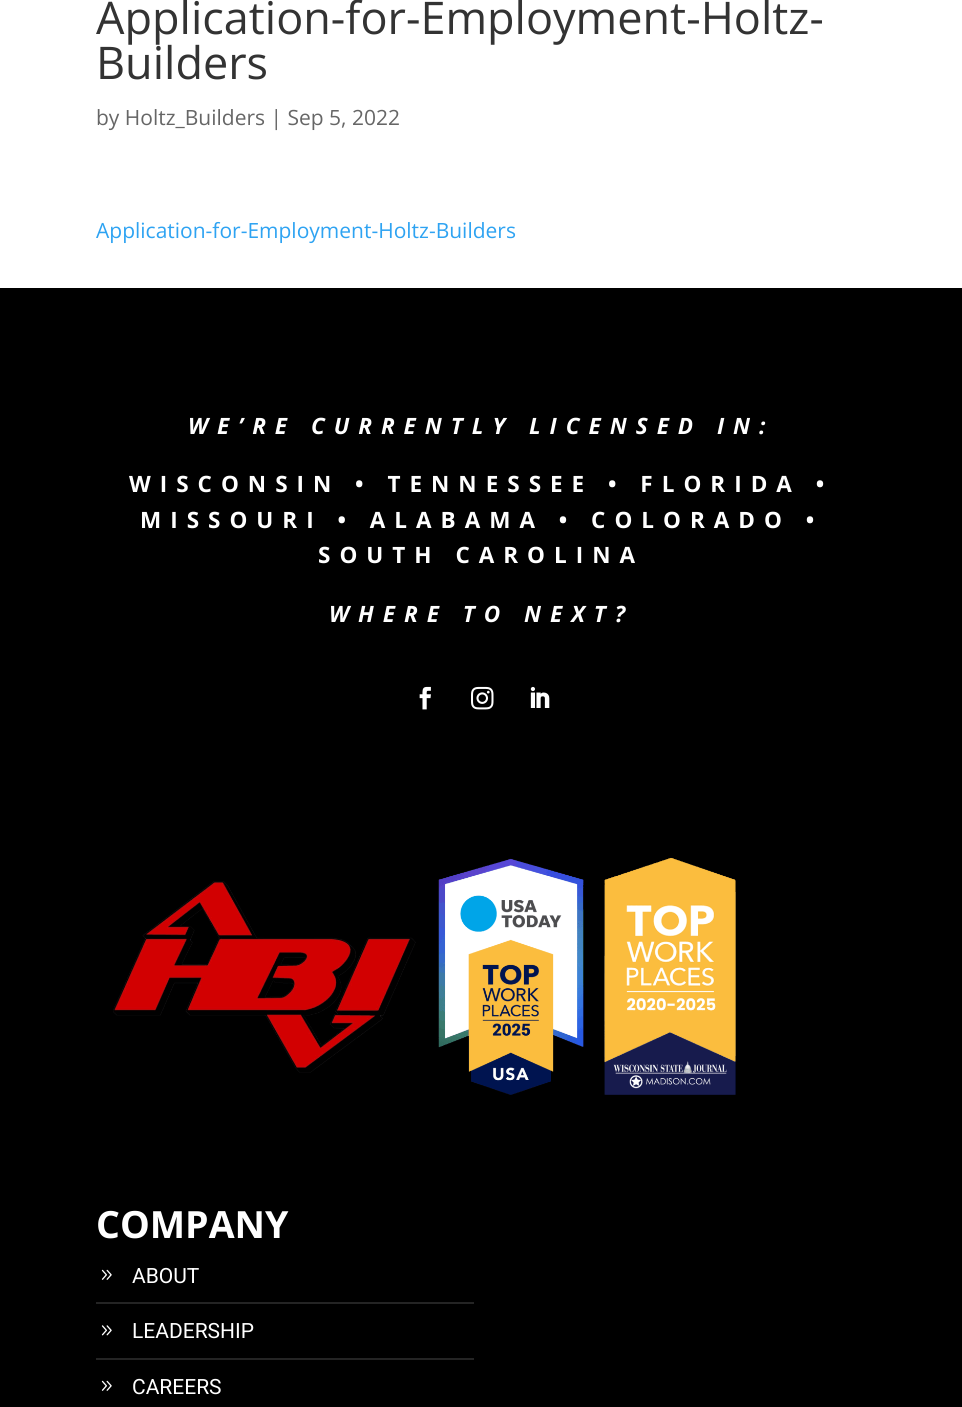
#include <cairo.h>
#include <math.h>
#include <stddef.h>


static void spaced_text(cairo_t *cr, double x, double y, const char *s, double letter, double word) {
    cairo_move_to(cr, x, y);
    while (*s) {
        char ch[5] = {0};
        int n = 0;
        do ch[n++] = *s++; while ((*s & 0xC0) == 0x80);
        cairo_show_text(cr, ch);
        cairo_rel_move_to(cr, letter + word * (*ch == ' '), 0);
    }
}

static void picture(cairo_t *cr, const char *path, double x, double y, double w, double h) {
    cairo_surface_t *image = cairo_image_surface_create_from_png(path);
    cairo_save(cr);
    cairo_set_source_surface(cr, image, x, y);
    cairo_rectangle(cr, x, y, w, h);
    cairo_fill(cr);
    cairo_restore(cr);
    cairo_surface_destroy(image);
}

int main(void) {
    cairo_surface_t *surface = cairo_image_surface_create(CAIRO_FORMAT_RGB24, 962, 1407);
    cairo_t *cr = cairo_create(surface);
    cairo_font_options_t *options = cairo_font_options_create();
    cairo_font_options_set_hint_metrics(options, CAIRO_HINT_METRICS_OFF);
    cairo_font_options_set_hint_style(options, CAIRO_HINT_STYLE_NONE);
    cairo_set_font_options(cr, options);
    cairo_set_miter_limit(cr, 4);
    cairo_set_source_rgb(cr, 1, 1, 1);
    cairo_paint(cr);
    cairo_select_font_face(cr, "Open Sans", CAIRO_FONT_SLANT_NORMAL, CAIRO_FONT_WEIGHT_NORMAL);
    cairo_set_font_size(cr, 45);
    cairo_set_source_rgb(cr, 0.2, 0.2, 0.2);
    cairo_move_to(cr, 96, 34);
    cairo_show_text(cr, "Application-for-Employment-Holtz-");
    cairo_move_to(cr, 96, 79);
    cairo_show_text(cr, "Builders");
    cairo_set_font_size(cr, 21);
    cairo_set_source_rgb(cr, 0.4, 0.4, 0.4);
    cairo_move_to(cr, 96, 125);
    cairo_show_text(cr, "by Holtz_Builders | Sep 5, 2022");
    cairo_set_source_rgb(cr, 0.18, 0.639, 0.949);
    cairo_move_to(cr, 96, 238);
    cairo_show_text(cr, "Application-for-Employment-Holtz-Builders");
    cairo_set_source_rgb(cr, 0, 0, 0);
    cairo_rectangle(cr, 0, 288, 962, 1119);
    cairo_fill(cr);
    cairo_select_font_face(cr, "Open Sans", CAIRO_FONT_SLANT_ITALIC, CAIRO_FONT_WEIGHT_BOLD);
    cairo_set_font_size(cr, 22.5);
    cairo_set_source_rgb(cr, 1, 1, 1);
    spaced_text(cr, 188, 434, "WE’RE CURRENTLY LICENSED IN:", 9, 0);
    cairo_select_font_face(cr, "Open Sans", CAIRO_FONT_SLANT_NORMAL, CAIRO_FONT_WEIGHT_BOLD);
    spaced_text(cr, 129, 492, "WISCONSIN • TENNESSEE • FLORIDA •", 9, 0);
    spaced_text(cr, 140, 528, "MISSOURI • ALABAMA • COLORADO •", 9, 0);
    spaced_text(cr, 318, 563, "SOUTH CAROLINA", 9, 0);
    cairo_select_font_face(cr, "Open Sans", CAIRO_FONT_SLANT_ITALIC, CAIRO_FONT_WEIGHT_BOLD);
    spaced_text(cr, 329, 622, "WHERE TO NEXT?", 9, 0);
    picture(cr, "img1.png", 419, 686, 12, 24);
    picture(cr, "img2.png", 471, 686, 23, 24);
    picture(cr, "img3.png", 530, 686, 20, 22);
    picture(cr, "img4.png", 113, 857, 623, 238);
    cairo_select_font_face(cr, "Open Sans", CAIRO_FONT_SLANT_NORMAL, CAIRO_FONT_WEIGHT_BOLD);
    cairo_set_font_size(cr, 37.5);
    cairo_move_to(cr, 96, 1238);
    cairo_show_text(cr, "COMPANY");
    cairo_set_source_rgb(cr, 0.141, 0.141, 0.141);
    cairo_rectangle(cr, 96, 1302, 378, 2);
    cairo_fill(cr);
    picture(cr, "img5.png", 101, 1269, 11, 11);
    cairo_select_font_face(cr, "Roboto", CAIRO_FONT_SLANT_NORMAL, CAIRO_FONT_WEIGHT_NORMAL);
    cairo_set_font_size(cr, 21);
    cairo_set_source_rgb(cr, 1, 1, 1);
    cairo_move_to(cr, 132, 1283);
    cairo_show_text(cr, "ABOUT");
    cairo_set_source_rgb(cr, 0.141, 0.141, 0.141);
    cairo_rectangle(cr, 96, 1358, 378, 2);
    cairo_fill(cr);
    picture(cr, "img6.png", 101, 1325, 11, 11);
    cairo_set_source_rgb(cr, 1, 1, 1);
    cairo_move_to(cr, 132, 1338);
    cairo_show_text(cr, "LEADERSHIP");
    picture(cr, "img5.png", 101, 1380, 11, 11);
    cairo_move_to(cr, 132, 1394);
    cairo_show_text(cr, "CAREERS");
    cairo_surface_write_to_png(surface, "page.png");
    cairo_font_options_destroy(options);
    cairo_destroy(cr);
    cairo_surface_destroy(surface);
    return 0;
}
